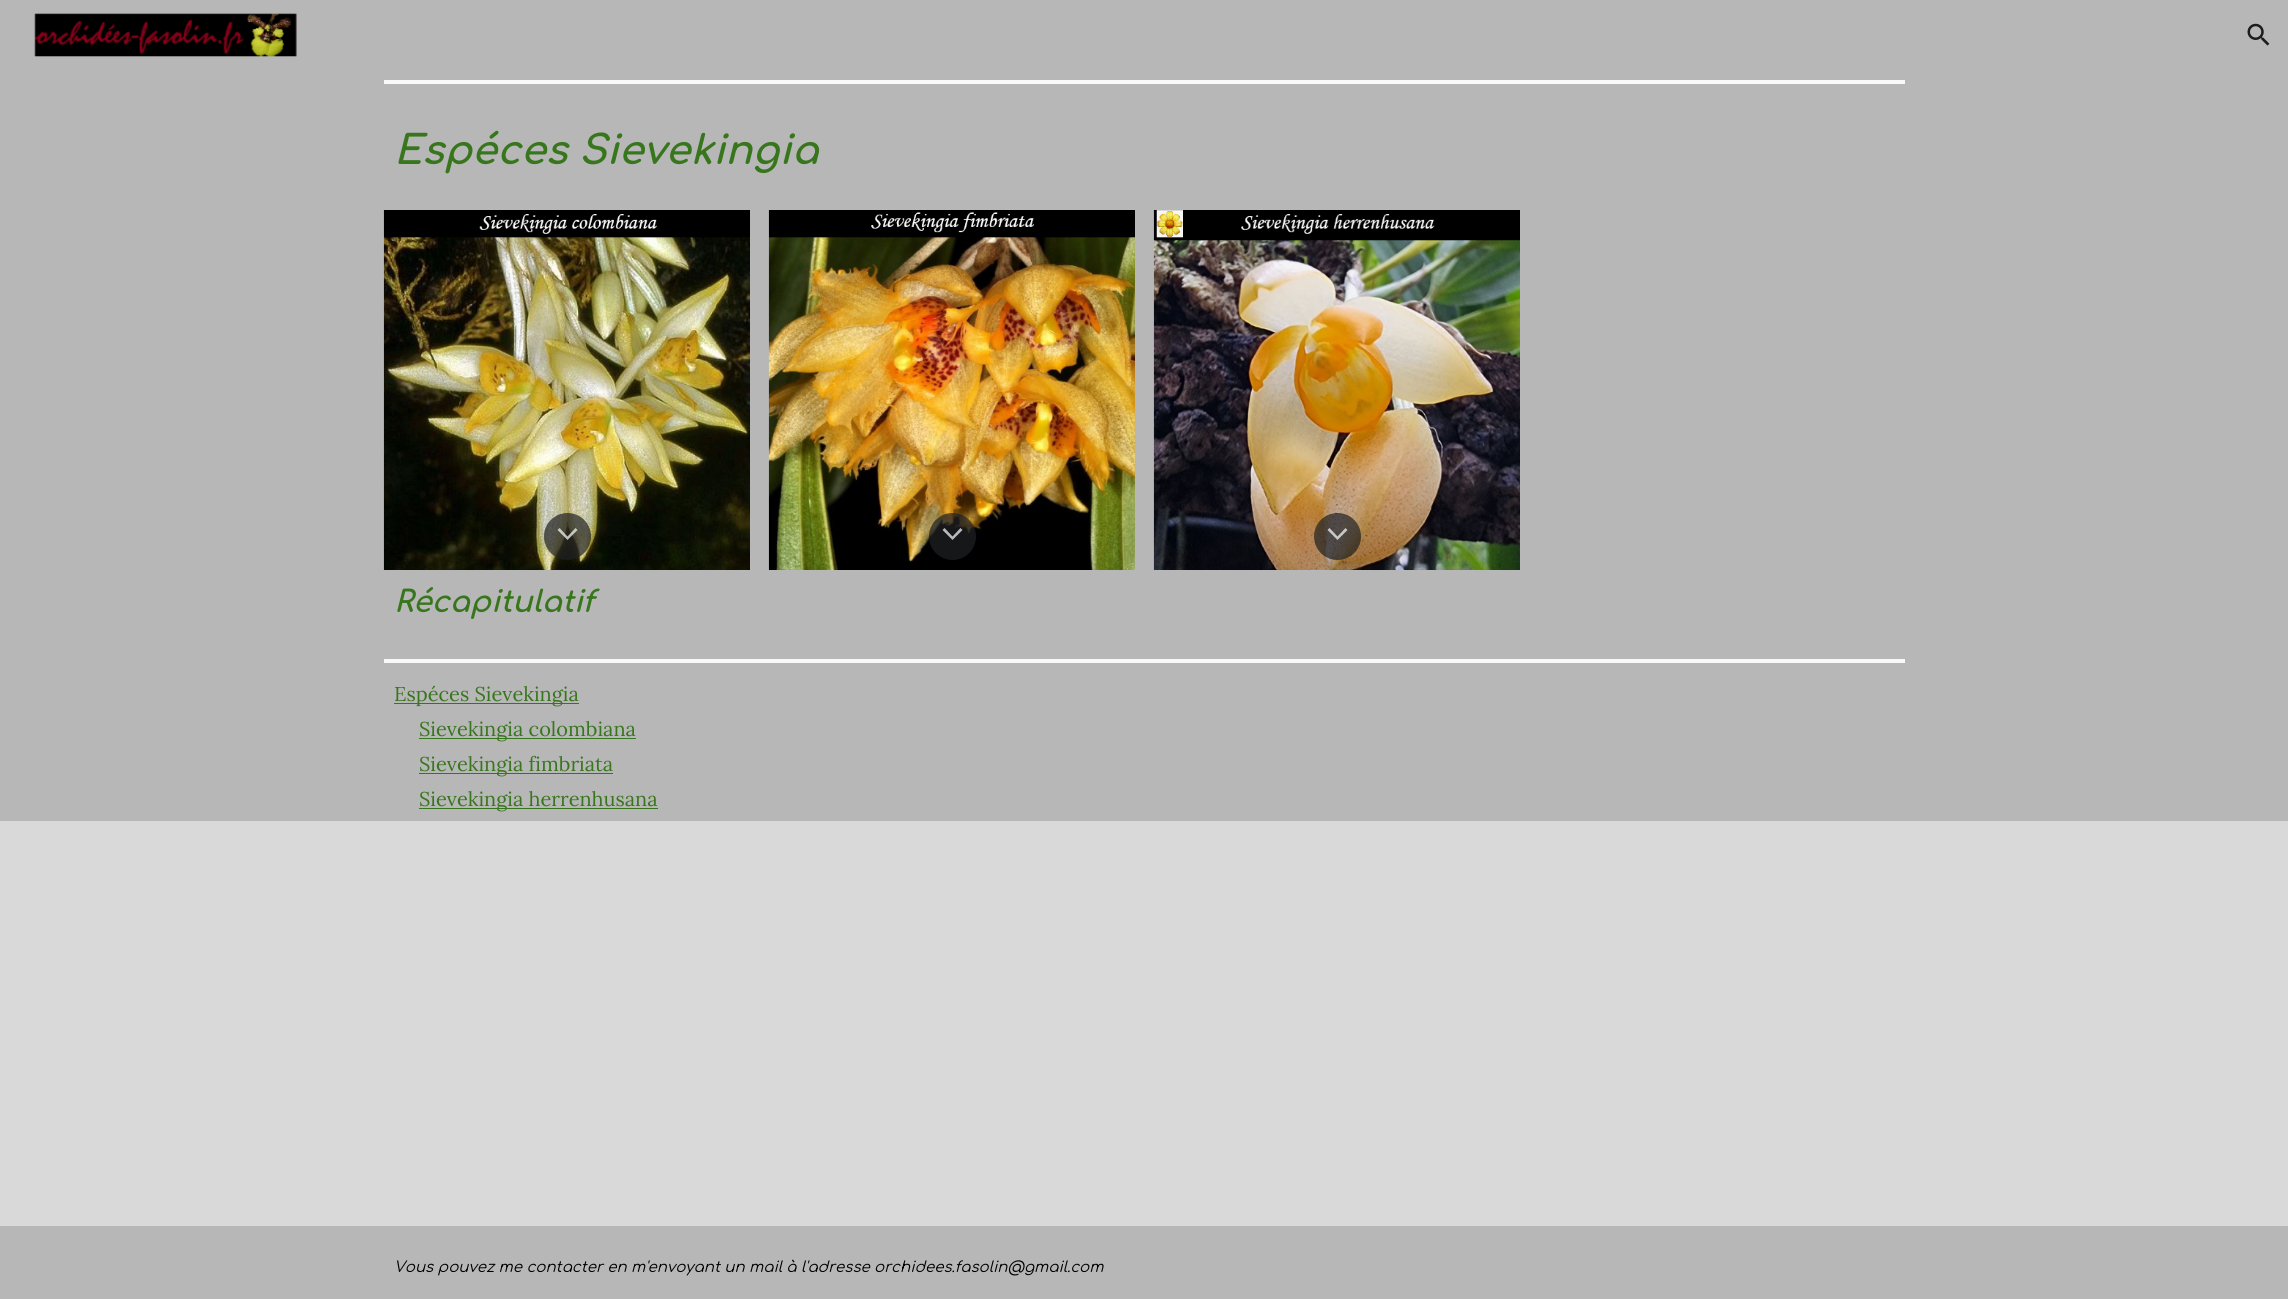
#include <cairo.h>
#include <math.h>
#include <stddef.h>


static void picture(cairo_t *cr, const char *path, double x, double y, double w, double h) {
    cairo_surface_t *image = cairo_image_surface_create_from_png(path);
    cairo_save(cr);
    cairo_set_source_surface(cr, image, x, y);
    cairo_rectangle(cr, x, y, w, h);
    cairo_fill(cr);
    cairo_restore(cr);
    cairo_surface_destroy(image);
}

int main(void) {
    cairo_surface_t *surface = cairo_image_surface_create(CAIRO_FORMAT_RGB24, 2288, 1299);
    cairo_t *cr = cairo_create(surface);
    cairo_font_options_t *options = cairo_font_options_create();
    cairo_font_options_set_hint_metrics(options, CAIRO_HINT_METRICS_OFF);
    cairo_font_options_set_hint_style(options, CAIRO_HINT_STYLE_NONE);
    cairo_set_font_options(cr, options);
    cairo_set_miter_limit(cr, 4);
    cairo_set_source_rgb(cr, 0.851, 0.851, 0.851);
    cairo_paint(cr);
    cairo_set_source_rgb(cr, 0.718, 0.718, 0.718);
    cairo_rectangle(cr, 0, 0, 2288, 821);
    cairo_fill(cr);
    picture(cr, "img1.png", 34, 13, 263, 44);
    picture(cr, "img2.png", 2247, 23, 23, 23);
    cairo_set_source_rgb(cr, 0.976, 0.976, 0.976);
    cairo_rectangle(cr, 384, 80, 1521, 4);
    cairo_fill(cr);
    cairo_select_font_face(cr, "Comfortaa", CAIRO_FONT_SLANT_ITALIC, CAIRO_FONT_WEIGHT_BOLD);
    cairo_set_font_size(cr, 40);
    cairo_set_source_rgb(cr, 0.22, 0.463, 0.114);
    cairo_move_to(cr, 394, 164);
    cairo_show_text(cr, "Espéces Sievekingia");
    picture(cr, "img3.png", 383, 210, 367, 360);
    cairo_set_source_rgba(cr, 0.125, 0.129, 0.141, 0.7);
    cairo_arc(cr, 567.5, 536.5, 23.5, 0, 2 * M_PI);
    cairo_fill(cr);
    cairo_set_source_rgba(cr, 1, 1, 1, 0.7);
    cairo_new_path(cr);
    cairo_move_to(cr, 559.5, 528);
    cairo_line_to(cr, 557.5, 530);
    cairo_line_to(cr, 567.5, 540);
    cairo_line_to(cr, 577.5, 530);
    cairo_line_to(cr, 575.5, 528);
    cairo_line_to(cr, 567.5, 536.5);
    cairo_fill(cr);
    picture(cr, "img4.png", 768, 210, 367, 360);
    cairo_set_source_rgba(cr, 0.125, 0.129, 0.141, 0.7);
    cairo_arc(cr, 952.5, 536.5, 23.5, 0, 2 * M_PI);
    cairo_fill(cr);
    cairo_set_source_rgb(cr, 0.725, 0.725, 0.729);
    cairo_new_path(cr);
    cairo_move_to(cr, 944.5, 528);
    cairo_line_to(cr, 942.5, 530);
    cairo_line_to(cr, 952.5, 540);
    cairo_line_to(cr, 962.5, 530);
    cairo_line_to(cr, 960.5, 528);
    cairo_line_to(cr, 952.5, 536.5);
    cairo_fill(cr);
    picture(cr, "img5.png", 1153, 210, 367, 360);
    cairo_set_source_rgba(cr, 0.125, 0.129, 0.141, 0.7);
    cairo_arc(cr, 1337.5, 536.5, 23.5, 0, 2 * M_PI);
    cairo_fill(cr);
    cairo_set_source_rgba(cr, 1, 1, 1, 0.7);
    cairo_new_path(cr);
    cairo_move_to(cr, 1329.5, 528);
    cairo_line_to(cr, 1327.5, 530);
    cairo_line_to(cr, 1337.5, 540);
    cairo_line_to(cr, 1347.5, 530);
    cairo_line_to(cr, 1345.5, 528);
    cairo_line_to(cr, 1337.5, 536.5);
    cairo_fill(cr);
    cairo_set_font_size(cr, 30);
    cairo_set_source_rgb(cr, 0.22, 0.463, 0.114);
    cairo_move_to(cr, 394, 612);
    cairo_show_text(cr, "Récapitulatif");
    cairo_set_source_rgb(cr, 0.976, 0.976, 0.976);
    cairo_rectangle(cr, 384, 659, 1521, 4);
    cairo_fill(cr);
    cairo_set_source_rgb(cr, 0.22, 0.463, 0.114);
    cairo_rectangle(cr, 394, 703, 185, 1);
    cairo_fill(cr);
    cairo_select_font_face(cr, "Lora", CAIRO_FONT_SLANT_NORMAL, CAIRO_FONT_WEIGHT_NORMAL);
    cairo_set_font_size(cr, 20);
    cairo_move_to(cr, 394, 701);
    cairo_show_text(cr, "Espéces Sievekingia");
    cairo_rectangle(cr, 419, 738, 217, 1);
    cairo_fill(cr);
    cairo_move_to(cr, 419, 736);
    cairo_show_text(cr, "Sievekingia colombiana");
    cairo_rectangle(cr, 419, 773, 194, 1);
    cairo_fill(cr);
    cairo_move_to(cr, 419, 771);
    cairo_show_text(cr, "Sievekingia fimbriata");
    cairo_rectangle(cr, 419, 808, 239, 1);
    cairo_fill(cr);
    cairo_move_to(cr, 419, 806);
    cairo_show_text(cr, "Sievekingia herrenhusana");
    cairo_set_source_rgb(cr, 0.718, 0.718, 0.718);
    cairo_rectangle(cr, 0, 1226, 2288, 73);
    cairo_fill(cr);
    cairo_select_font_face(cr, "Comfortaa", CAIRO_FONT_SLANT_ITALIC, CAIRO_FONT_WEIGHT_NORMAL);
    cairo_set_font_size(cr, 15);
    cairo_set_source_rgb(cr, 0, 0, 0);
    cairo_move_to(cr, 394, 1272);
    cairo_show_text(cr, "Vous pouvez me contacter en m'envoyant un mail à l'adresse orchidees.fasolin@gmail.com");
    cairo_surface_write_to_png(surface, "page.png");
    cairo_font_options_destroy(options);
    cairo_destroy(cr);
    cairo_surface_destroy(surface);
    return 0;
}
